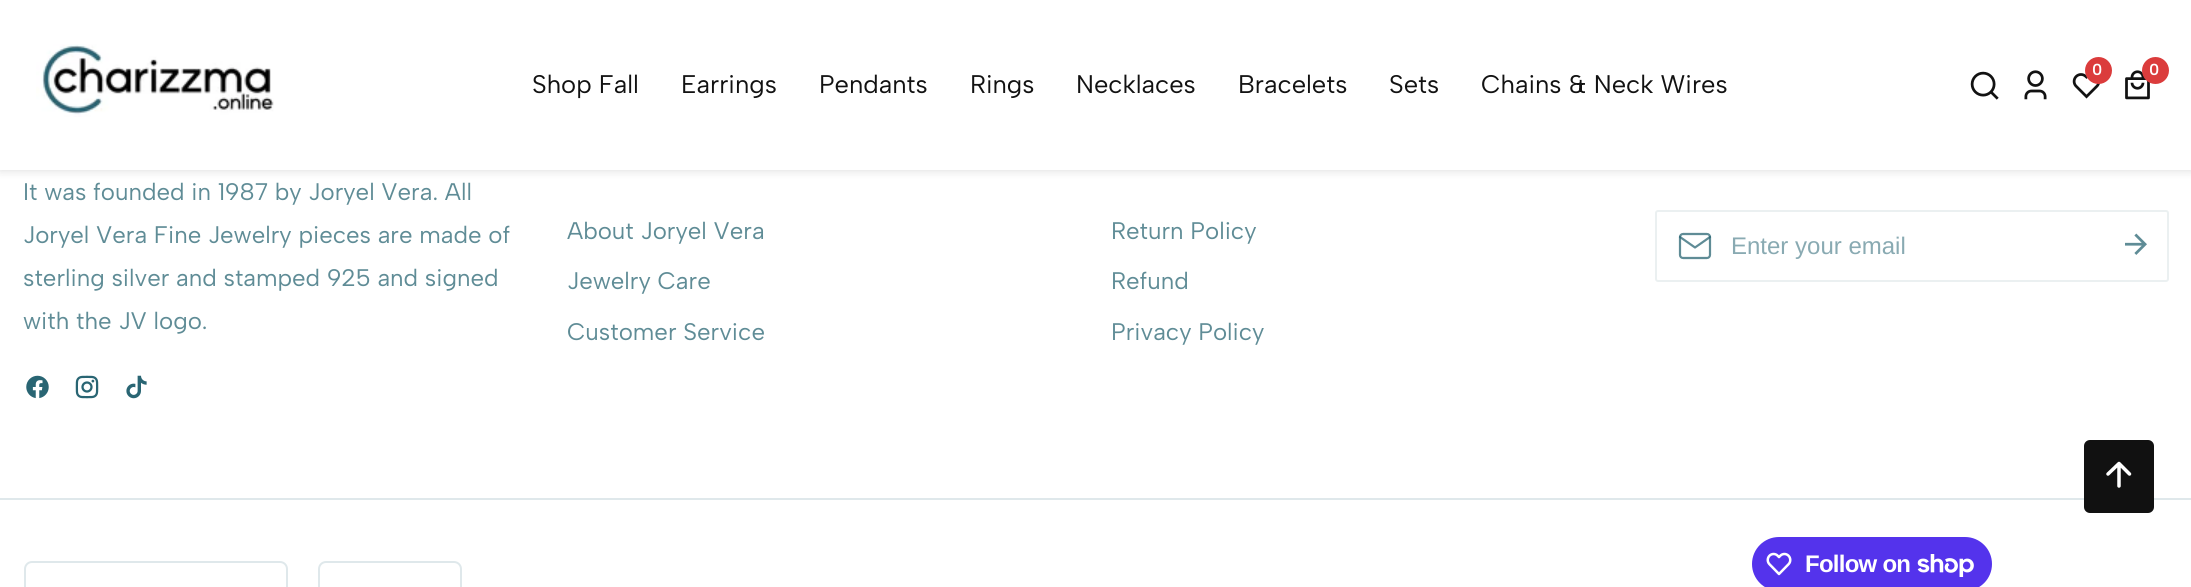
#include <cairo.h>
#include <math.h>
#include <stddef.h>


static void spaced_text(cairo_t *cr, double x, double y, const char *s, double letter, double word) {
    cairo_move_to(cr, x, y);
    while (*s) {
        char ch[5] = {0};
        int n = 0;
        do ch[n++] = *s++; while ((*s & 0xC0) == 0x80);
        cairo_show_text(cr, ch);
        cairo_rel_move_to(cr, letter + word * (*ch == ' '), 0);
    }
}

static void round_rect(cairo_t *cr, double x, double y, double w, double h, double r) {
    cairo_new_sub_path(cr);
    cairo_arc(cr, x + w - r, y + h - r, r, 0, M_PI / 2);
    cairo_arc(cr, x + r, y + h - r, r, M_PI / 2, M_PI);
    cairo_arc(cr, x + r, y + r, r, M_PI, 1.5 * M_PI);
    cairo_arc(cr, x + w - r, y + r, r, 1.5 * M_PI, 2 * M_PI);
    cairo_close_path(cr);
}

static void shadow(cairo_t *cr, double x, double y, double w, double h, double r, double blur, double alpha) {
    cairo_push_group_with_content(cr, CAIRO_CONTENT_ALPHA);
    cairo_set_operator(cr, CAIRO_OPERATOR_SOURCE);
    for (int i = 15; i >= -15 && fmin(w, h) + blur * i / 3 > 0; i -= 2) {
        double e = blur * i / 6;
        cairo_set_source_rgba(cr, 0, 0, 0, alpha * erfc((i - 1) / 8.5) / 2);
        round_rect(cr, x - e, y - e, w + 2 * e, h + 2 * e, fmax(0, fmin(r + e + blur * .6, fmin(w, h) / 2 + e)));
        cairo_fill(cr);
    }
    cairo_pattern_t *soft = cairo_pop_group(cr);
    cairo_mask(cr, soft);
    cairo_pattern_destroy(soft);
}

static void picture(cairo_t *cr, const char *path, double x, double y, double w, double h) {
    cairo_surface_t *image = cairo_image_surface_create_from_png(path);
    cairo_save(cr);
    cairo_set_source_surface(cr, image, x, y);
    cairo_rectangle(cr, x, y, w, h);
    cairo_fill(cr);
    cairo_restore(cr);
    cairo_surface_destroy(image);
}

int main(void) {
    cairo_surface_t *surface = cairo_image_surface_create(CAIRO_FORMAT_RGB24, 2191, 587);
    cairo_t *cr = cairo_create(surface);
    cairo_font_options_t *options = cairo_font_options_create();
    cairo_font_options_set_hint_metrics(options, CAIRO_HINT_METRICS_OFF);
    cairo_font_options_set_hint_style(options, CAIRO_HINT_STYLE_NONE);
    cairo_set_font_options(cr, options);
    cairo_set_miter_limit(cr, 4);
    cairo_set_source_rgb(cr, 1, 1, 1);
    cairo_paint(cr);
    cairo_set_source_rgb(cr, 0, 0, 0);
    shadow(cr, 0, 0, 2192, 170, 0, 5, 0.15);
    cairo_set_source_rgb(cr, 1, 1, 1);
    cairo_rectangle(cr, 0, 0, 2191, 170);
    cairo_fill(cr);
    picture(cr, "img1.png", 36, 44, 238, 73);
    picture(cr, "img2.png", 1970, 71, 29, 29);
    picture(cr, "img3.png", 2024, 70, 23, 30);
    picture(cr, "img4.png", 2072, 73, 28, 26);
    cairo_set_source_rgb(cr, 0.859, 0.235, 0.235);
    cairo_arc(cr, 2098.5, 70.5, 13.5, 0, 2 * M_PI);
    cairo_fill(cr);
    cairo_select_font_face(cr, "Albert Sans SemiBold", CAIRO_FONT_SLANT_NORMAL, CAIRO_FONT_WEIGHT_NORMAL);
    cairo_set_font_size(cr, 16);
    cairo_set_source_rgb(cr, 1, 1, 1);
    cairo_move_to(cr, 2092, 75);
    cairo_show_text(cr, "0");
    picture(cr, "img5.png", 2125, 70, 25, 30);
    cairo_set_source_rgb(cr, 0.859, 0.235, 0.235);
    cairo_arc(cr, 2155.5, 70.5, 13.5, 0, 2 * M_PI);
    cairo_fill(cr);
    cairo_set_source_rgb(cr, 1, 1, 1);
    cairo_move_to(cr, 2149, 75);
    cairo_show_text(cr, "0");
    cairo_select_font_face(cr, "Albert Sans", CAIRO_FONT_SLANT_NORMAL, CAIRO_FONT_WEIGHT_NORMAL);
    cairo_set_font_size(cr, 25.5);
    cairo_set_source_rgb(cr, 0.071, 0.071, 0.071);
    cairo_move_to(cr, 532, 93);
    cairo_show_text(cr, "Shop Fall");
    cairo_move_to(cr, 681, 93);
    cairo_show_text(cr, "Earrings");
    cairo_move_to(cr, 819, 93);
    cairo_show_text(cr, "Pendants");
    cairo_move_to(cr, 970, 93);
    cairo_show_text(cr, "Rings");
    cairo_move_to(cr, 1076, 93);
    cairo_show_text(cr, "Necklaces");
    cairo_move_to(cr, 1238, 93);
    cairo_show_text(cr, "Bracelets");
    cairo_move_to(cr, 1389, 93);
    cairo_show_text(cr, "Sets");
    cairo_move_to(cr, 1481, 93);
    cairo_show_text(cr, "Chains & Neck Wires");
    cairo_set_font_size(cr, 24);
    cairo_set_source_rgb(cr, 0.373, 0.549, 0.588);
    cairo_move_to(cr, 23, 200);
    cairo_show_text(cr, "It was founded in 1987 by Joryel Vera. All");
    cairo_move_to(cr, 23, 243);
    cairo_show_text(cr, "Joryel Vera Fine Jewelry pieces are made of");
    cairo_move_to(cr, 23, 286);
    cairo_show_text(cr, "sterling silver and stamped 925 and signed");
    cairo_move_to(cr, 23, 329);
    cairo_show_text(cr, "with the JV logo.");
    picture(cr, "img6.png", 26, 375, 23, 24);
    picture(cr, "img7.png", 75, 375, 24, 24);
    picture(cr, "img8.png", 126, 375, 21, 24);
    cairo_move_to(cr, 567, 239);
    cairo_show_text(cr, "About Joryel Vera");
    cairo_move_to(cr, 567, 289);
    cairo_show_text(cr, "Jewelry Care");
    cairo_move_to(cr, 567, 340);
    cairo_show_text(cr, "Customer Service");
    cairo_move_to(cr, 1111, 239);
    cairo_show_text(cr, "Return Policy");
    cairo_move_to(cr, 1111, 289);
    cairo_show_text(cr, "Refund");
    cairo_move_to(cr, 1111, 340);
    cairo_show_text(cr, "Privacy Policy");
    round_rect(cr, 1656, 211, 512, 70, 2);
    cairo_set_source_rgb(cr, 0.918, 0.941, 0.945);
    cairo_stroke(cr);
    picture(cr, "img9.png", 1678, 232, 34, 28);
    cairo_select_font_face(cr, "Liberation Sans", CAIRO_FONT_SLANT_NORMAL, CAIRO_FONT_WEIGHT_NORMAL);
    cairo_set_source_rgb(cr, 0.537, 0.667, 0.698);
    cairo_move_to(cr, 1731, 254);
    cairo_show_text(cr, "Enter your email");
    picture(cr, "img10.png", 2125, 233, 22, 22);
    cairo_set_source_rgb(cr, 0.875, 0.91, 0.918);
    cairo_rectangle(cr, 0, 498, 2191, 2);
    cairo_fill(cr);
    round_rect(cr, 25, 562, 262, 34, 7);
    cairo_stroke(cr);
    round_rect(cr, 319, 562, 142, 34, 7);
    cairo_stroke(cr);
    cairo_set_source_rgb(cr, 0.329, 0.2, 0.922);
    round_rect(cr, 1752, 537, 240, 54, 27);
    cairo_fill(cr);
    picture(cr, "img11.png", 1766, 552, 26, 24);
    cairo_select_font_face(cr, "Liberation Sans", CAIRO_FONT_SLANT_NORMAL, CAIRO_FONT_WEIGHT_BOLD);
    cairo_set_source_rgb(cr, 1, 1, 1);
    spaced_text(cr, 1805, 572, "Follow on", -0.75, 0);
    picture(cr, "img12.png", 1917, 554, 57, 23);
    cairo_set_source_rgb(cr, 0.067, 0.067, 0.067);
    round_rect(cr, 2085, 441, 68, 71, 5);
    cairo_fill_preserve(cr);
    cairo_stroke(cr);
    cairo_new_path(cr);
    cairo_move_to(cr, 2108, 474);
    cairo_line_to(cr, 2119, 463.5);
    cairo_line_to(cr, 2129.5, 474);
    cairo_move_to(cr, 2119, 465);
    cairo_line_to(cr, 2119, 486);
    cairo_set_source_rgb(cr, 1, 1, 1);
    cairo_set_line_width(cr, 3.5);
    cairo_set_line_cap(cr, CAIRO_LINE_CAP_ROUND);
    cairo_set_line_join(cr, CAIRO_LINE_JOIN_ROUND);
    cairo_stroke(cr);
    cairo_surface_write_to_png(surface, "page.png");
    cairo_font_options_destroy(options);
    cairo_destroy(cr);
    cairo_surface_destroy(surface);
    return 0;
}
